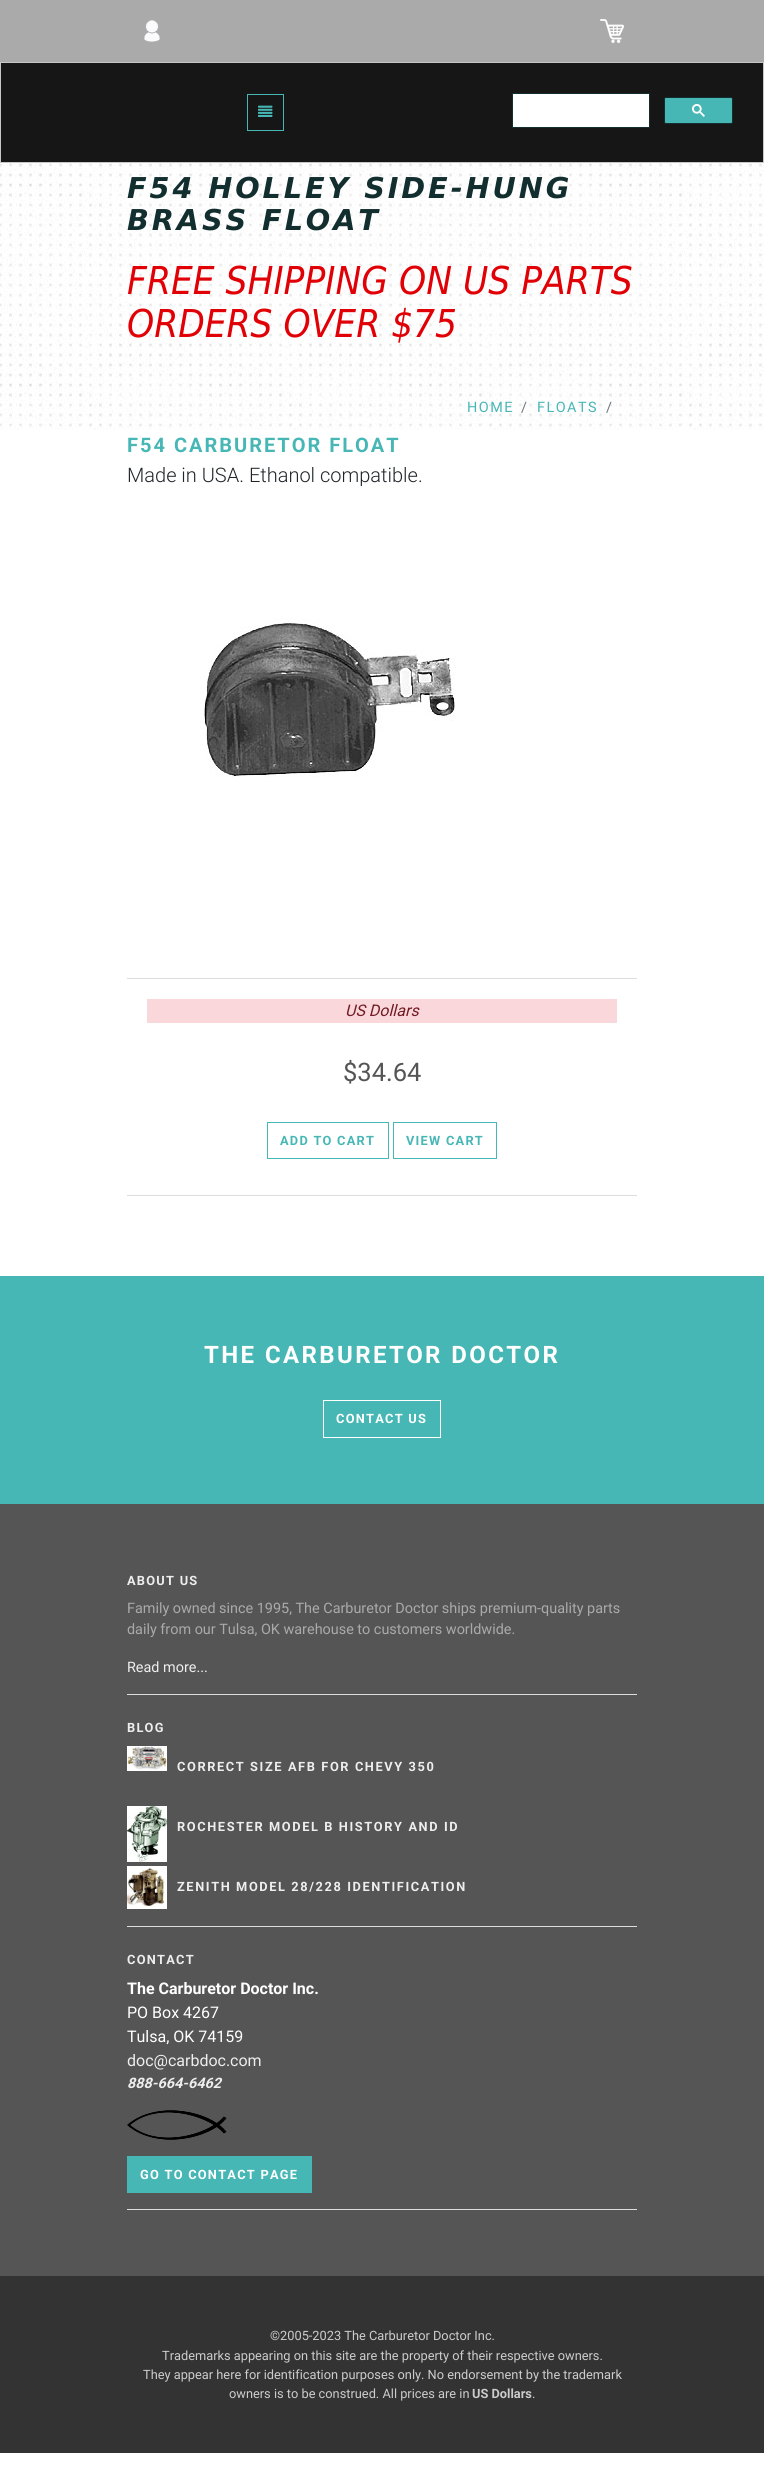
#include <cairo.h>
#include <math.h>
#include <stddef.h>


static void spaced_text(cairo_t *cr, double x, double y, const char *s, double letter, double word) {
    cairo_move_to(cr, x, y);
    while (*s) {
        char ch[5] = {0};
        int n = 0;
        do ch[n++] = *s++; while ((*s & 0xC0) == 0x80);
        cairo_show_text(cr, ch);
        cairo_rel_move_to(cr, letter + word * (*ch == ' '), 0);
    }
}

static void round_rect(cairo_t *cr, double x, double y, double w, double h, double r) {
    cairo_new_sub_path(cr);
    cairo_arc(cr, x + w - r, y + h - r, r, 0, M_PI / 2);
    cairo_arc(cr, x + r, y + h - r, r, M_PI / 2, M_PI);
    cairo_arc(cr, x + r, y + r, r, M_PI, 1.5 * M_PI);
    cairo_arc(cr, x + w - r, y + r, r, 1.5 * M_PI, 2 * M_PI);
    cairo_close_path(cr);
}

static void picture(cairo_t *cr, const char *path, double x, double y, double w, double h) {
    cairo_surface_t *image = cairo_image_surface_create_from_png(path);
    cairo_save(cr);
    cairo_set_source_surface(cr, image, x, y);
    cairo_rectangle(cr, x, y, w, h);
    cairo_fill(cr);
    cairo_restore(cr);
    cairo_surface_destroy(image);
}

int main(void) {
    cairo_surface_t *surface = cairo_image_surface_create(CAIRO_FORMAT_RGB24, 764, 2474);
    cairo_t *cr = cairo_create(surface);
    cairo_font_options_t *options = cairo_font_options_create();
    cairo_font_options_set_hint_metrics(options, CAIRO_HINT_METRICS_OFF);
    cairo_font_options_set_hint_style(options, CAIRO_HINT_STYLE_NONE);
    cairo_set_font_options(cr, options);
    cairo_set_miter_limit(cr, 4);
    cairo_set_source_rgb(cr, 1, 1, 1);
    cairo_paint(cr);
    cairo_set_source_rgb(cr, 0.667, 0.667, 0.667);
    cairo_rectangle(cr, 0, 0, 764, 62);
    cairo_fill(cr);
    picture(cr, "img1.png", 144, 20, 16, 22);
    picture(cr, "img2.png", 600, 19, 24, 24);
    cairo_set_source_rgb(cr, 0.086, 0.086, 0.086);
    cairo_rectangle(cr, 0.5, 62.5, 763, 100);
    cairo_fill_preserve(cr);
    cairo_set_source_rgb(cr, 0.78, 0.78, 0.78);
    cairo_set_line_width(cr, 1);
    cairo_stroke(cr);
    cairo_rectangle(cr, 247.5, 94.5, 36, 36);
    cairo_set_source_rgb(cr, 0.278, 0.718, 0.714);
    cairo_stroke(cr);
    picture(cr, "img3.png", 258, 105, 15, 12);
    cairo_set_source_rgb(cr, 1, 1, 1);
    cairo_rectangle(cr, 512.5, 93.5, 137, 34);
    cairo_fill_preserve(cr);
    cairo_set_source_rgb(cr, 0.071, 0.18, 0.18);
    cairo_stroke(cr);
    cairo_set_source_rgb(cr, 0.278, 0.718, 0.714);
    round_rect(cr, 664.5, 97.5, 68, 26, 1.5);
    cairo_fill_preserve(cr);
    cairo_set_source_rgb(cr, 0.071, 0.18, 0.18);
    cairo_stroke(cr);
    picture(cr, "img4.png", 692, 104, 13, 13);
    picture(cr, "img5.png", 0, 163, 764, 267);
    cairo_select_font_face(cr, "DejaVu Sans", CAIRO_FONT_SLANT_ITALIC, CAIRO_FONT_WEIGHT_BOLD);
    cairo_set_font_size(cr, 28.75);
    spaced_text(cr, 127, 198, "F54 HOLLEY SIDE-HUNG", 2.9, 0);
    spaced_text(cr, 127, 230, "BRASS FLOAT", 2.9, 0);
    cairo_select_font_face(cr, "DejaVu Sans", CAIRO_FONT_SLANT_ITALIC, CAIRO_FONT_WEIGHT_NORMAL);
    cairo_set_font_size(cr, 38.4);
    cairo_set_source_rgb(cr, 0.878, 0, 0.02);
    cairo_move_to(cr, 127, 294);
    cairo_show_text(cr, "FREE SHIPPING ON US PARTS");
    cairo_move_to(cr, 127, 337);
    cairo_show_text(cr, "ORDERS OVER $75");
    cairo_select_font_face(cr, "Roboto", CAIRO_FONT_SLANT_NORMAL, CAIRO_FONT_WEIGHT_NORMAL);
    cairo_set_font_size(cr, 14.4);
    cairo_set_source_rgb(cr, 0.278, 0.718, 0.714);
    spaced_text(cr, 467, 412, "HOME", 1.5, 0);
    cairo_set_source_rgb(cr, 0.424, 0.459, 0.49);
    spaced_text(cr, 521, 412, "/", 1.5, 0);
    cairo_set_source_rgb(cr, 0.278, 0.718, 0.714);
    spaced_text(cr, 537, 412, "FLOATS", 1.5, 0);
    cairo_set_source_rgb(cr, 0.424, 0.459, 0.49);
    spaced_text(cr, 606, 412, "/", 1.5, 0);
    cairo_select_font_face(cr, "Roboto", CAIRO_FONT_SLANT_NORMAL, CAIRO_FONT_WEIGHT_BOLD);
    cairo_set_font_size(cr, 20);
    cairo_set_source_rgb(cr, 0.278, 0.718, 0.714);
    spaced_text(cr, 127, 452, "F54 CARBURETOR FLOAT", 2, 0);
    cairo_select_font_face(cr, "Roboto Light", CAIRO_FONT_SLANT_NORMAL, CAIRO_FONT_WEIGHT_NORMAL);
    cairo_set_source_rgb(cr, 0.129, 0.145, 0.161);
    cairo_move_to(cr, 127, 482);
    cairo_show_text(cr, "Made in USA. Ethanol compatible.");
    picture(cr, "img6.png", 200, 618, 255, 160);
    cairo_set_source_rgb(cr, 0.867, 0.867, 0.867);
    cairo_rectangle(cr, 127, 978, 510, 1);
    cairo_fill(cr);
    cairo_rectangle(cr, 127, 1195, 510, 1);
    cairo_fill(cr);
    cairo_set_source_rgb(cr, 0.973, 0.843, 0.855);
    cairo_rectangle(cr, 147, 999, 470, 24);
    cairo_fill(cr);
    cairo_select_font_face(cr, "Roboto", CAIRO_FONT_SLANT_ITALIC, CAIRO_FONT_WEIGHT_NORMAL);
    cairo_set_font_size(cr, 16);
    cairo_set_source_rgb(cr, 0.447, 0.11, 0.141);
    cairo_move_to(cr, 345, 1016);
    cairo_show_text(cr, "US Dollars");
    cairo_select_font_face(cr, "Roboto", CAIRO_FONT_SLANT_NORMAL, CAIRO_FONT_WEIGHT_NORMAL);
    cairo_set_font_size(cr, 25.5);
    cairo_set_source_rgb(cr, 0.333, 0.333, 0.333);
    cairo_move_to(cr, 343, 1081);
    cairo_show_text(cr, "$34.64");
    cairo_rectangle(cr, 267.5, 1122.5, 121, 36);
    cairo_set_source_rgb(cr, 0.278, 0.718, 0.714);
    cairo_stroke(cr);
    cairo_select_font_face(cr, "Roboto", CAIRO_FONT_SLANT_NORMAL, CAIRO_FONT_WEIGHT_BOLD);
    cairo_set_font_size(cr, 12.8);
    spaced_text(cr, 280, 1145, "ADD TO CART", 1.25, 0);
    cairo_rectangle(cr, 393.5, 1122.5, 103, 36);
    cairo_stroke(cr);
    spaced_text(cr, 406, 1145, "VIEW CART", 1.25, 0);
    cairo_rectangle(cr, 0, 1276, 764, 228);
    cairo_fill(cr);
    cairo_set_font_size(cr, 24);
    cairo_set_source_rgb(cr, 1, 1, 1);
    spaced_text(cr, 204, 1363, "THE CARBURETOR DOCTOR", 2.4, 0);
    cairo_rectangle(cr, 323.5, 1400.5, 117, 37);
    cairo_stroke(cr);
    cairo_set_font_size(cr, 12.8);
    spaced_text(cr, 336, 1423, "CONTACT US", 1.25, 0);
    cairo_set_source_rgb(cr, 0.333, 0.333, 0.333);
    cairo_rectangle(cr, 0, 1504, 764, 772);
    cairo_fill(cr);
    cairo_set_source_rgb(cr, 0.933, 0.933, 0.933);
    spaced_text(cr, 127, 1585, "ABOUT US", 1.25, 0);
    cairo_select_font_face(cr, "Roboto", CAIRO_FONT_SLANT_NORMAL, CAIRO_FONT_WEIGHT_NORMAL);
    cairo_set_font_size(cr, 14.4);
    cairo_set_source_rgb(cr, 0.667, 0.667, 0.667);
    cairo_move_to(cr, 127, 1613);
    cairo_show_text(cr, "Family owned since 1995, The Carburetor Doctor ships premium-quality parts");
    cairo_move_to(cr, 127, 1634);
    cairo_show_text(cr, "daily from our Tulsa, OK warehouse to customers worldwide.");
    cairo_set_source_rgb(cr, 0.933, 0.933, 0.933);
    cairo_move_to(cr, 127, 1672);
    cairo_show_text(cr, "Read more...");
    cairo_set_source_rgb(cr, 0.867, 0.867, 0.867);
    cairo_rectangle(cr, 127, 1694, 510, 1);
    cairo_fill(cr);
    cairo_select_font_face(cr, "Roboto", CAIRO_FONT_SLANT_NORMAL, CAIRO_FONT_WEIGHT_BOLD);
    cairo_set_font_size(cr, 12.8);
    cairo_set_source_rgb(cr, 0.933, 0.933, 0.933);
    spaced_text(cr, 127, 1732, "BLOG", 1.25, 0);
    picture(cr, "img7.png", 127, 1746, 40, 25);
    spaced_text(cr, 177, 1771, "CORRECT SIZE AFB FOR CHEVY 350", 1.6, 0);
    picture(cr, "img8.png", 127, 1806, 40, 56);
    spaced_text(cr, 177, 1831, "ROCHESTER MODEL B HISTORY AND ID", 1.6, 0);
    picture(cr, "img9.png", 127, 1866, 40, 43);
    spaced_text(cr, 177, 1891, "ZENITH MODEL 28/228 IDENTIFICATION", 1.6, 0);
    cairo_set_source_rgb(cr, 0.867, 0.867, 0.867);
    cairo_rectangle(cr, 127, 1926, 510, 1);
    cairo_fill(cr);
    cairo_set_source_rgb(cr, 0.933, 0.933, 0.933);
    spaced_text(cr, 127, 1964, "CONTACT", 1.25, 0);
    cairo_set_font_size(cr, 16);
    cairo_set_source_rgb(cr, 1, 1, 1);
    cairo_move_to(cr, 127, 1994);
    cairo_show_text(cr, "The Carburetor Doctor Inc.");
    cairo_select_font_face(cr, "Roboto", CAIRO_FONT_SLANT_NORMAL, CAIRO_FONT_WEIGHT_NORMAL);
    cairo_move_to(cr, 127, 2018);
    cairo_show_text(cr, "PO Box 4267");
    cairo_move_to(cr, 127, 2042);
    cairo_show_text(cr, "Tulsa, OK 74159");
    cairo_set_source_rgb(cr, 0.933, 0.933, 0.933);
    cairo_move_to(cr, 127, 2066);
    cairo_show_text(cr, "doc@carbdoc.com");
    cairo_select_font_face(cr, "Roboto", CAIRO_FONT_SLANT_ITALIC, CAIRO_FONT_WEIGHT_BOLD);
    cairo_set_font_size(cr, 14.4);
    cairo_move_to(cr, 127, 2088);
    cairo_show_text(cr, "888-664-6462");
    picture(cr, "img10.png", 127, 2110, 100, 30);
    cairo_set_source_rgb(cr, 0.278, 0.718, 0.714);
    cairo_rectangle(cr, 127, 2156, 185, 37);
    cairo_fill(cr);
    cairo_select_font_face(cr, "Roboto", CAIRO_FONT_SLANT_NORMAL, CAIRO_FONT_WEIGHT_BOLD);
    cairo_set_font_size(cr, 12.8);
    cairo_set_source_rgb(cr, 1, 1, 1);
    spaced_text(cr, 140, 2179, "GO TO CONTACT PAGE", 1.25, 0);
    cairo_set_source_rgb(cr, 0.867, 0.867, 0.867);
    cairo_rectangle(cr, 127, 2209, 510, 1);
    cairo_fill(cr);
    cairo_set_source_rgb(cr, 0.2, 0.2, 0.2);
    cairo_rectangle(cr, 0, 2276, 764, 177);
    cairo_fill(cr);
    cairo_select_font_face(cr, "Roboto", CAIRO_FONT_SLANT_NORMAL, CAIRO_FONT_WEIGHT_NORMAL);
    cairo_set_source_rgb(cr, 0.8, 0.8, 0.8);
    cairo_move_to(cr, 270, 2340);
    cairo_show_text(cr, "©2005-2023 The Carburetor Doctor Inc.");
    cairo_move_to(cr, 162, 2360);
    cairo_show_text(cr, "Trademarks appearing on this site are the property of their respective owners.");
    cairo_move_to(cr, 143, 2379);
    cairo_show_text(cr, "They appear here for identification purposes only. No endorsement by the trademark");
    cairo_move_to(cr, 229, 2398);
    cairo_show_text(cr, "owners is to be construed. All prices are in");
    cairo_select_font_face(cr, "Roboto", CAIRO_FONT_SLANT_NORMAL, CAIRO_FONT_WEIGHT_BOLD);
    cairo_move_to(cr, 472, 2398);
    cairo_show_text(cr, "US Dollars");
    cairo_select_font_face(cr, "Roboto", CAIRO_FONT_SLANT_NORMAL, CAIRO_FONT_WEIGHT_NORMAL);
    cairo_move_to(cr, 532, 2398);
    cairo_show_text(cr, ".");
    cairo_surface_write_to_png(surface, "page.png");
    cairo_font_options_destroy(options);
    cairo_destroy(cr);
    cairo_surface_destroy(surface);
    return 0;
}
